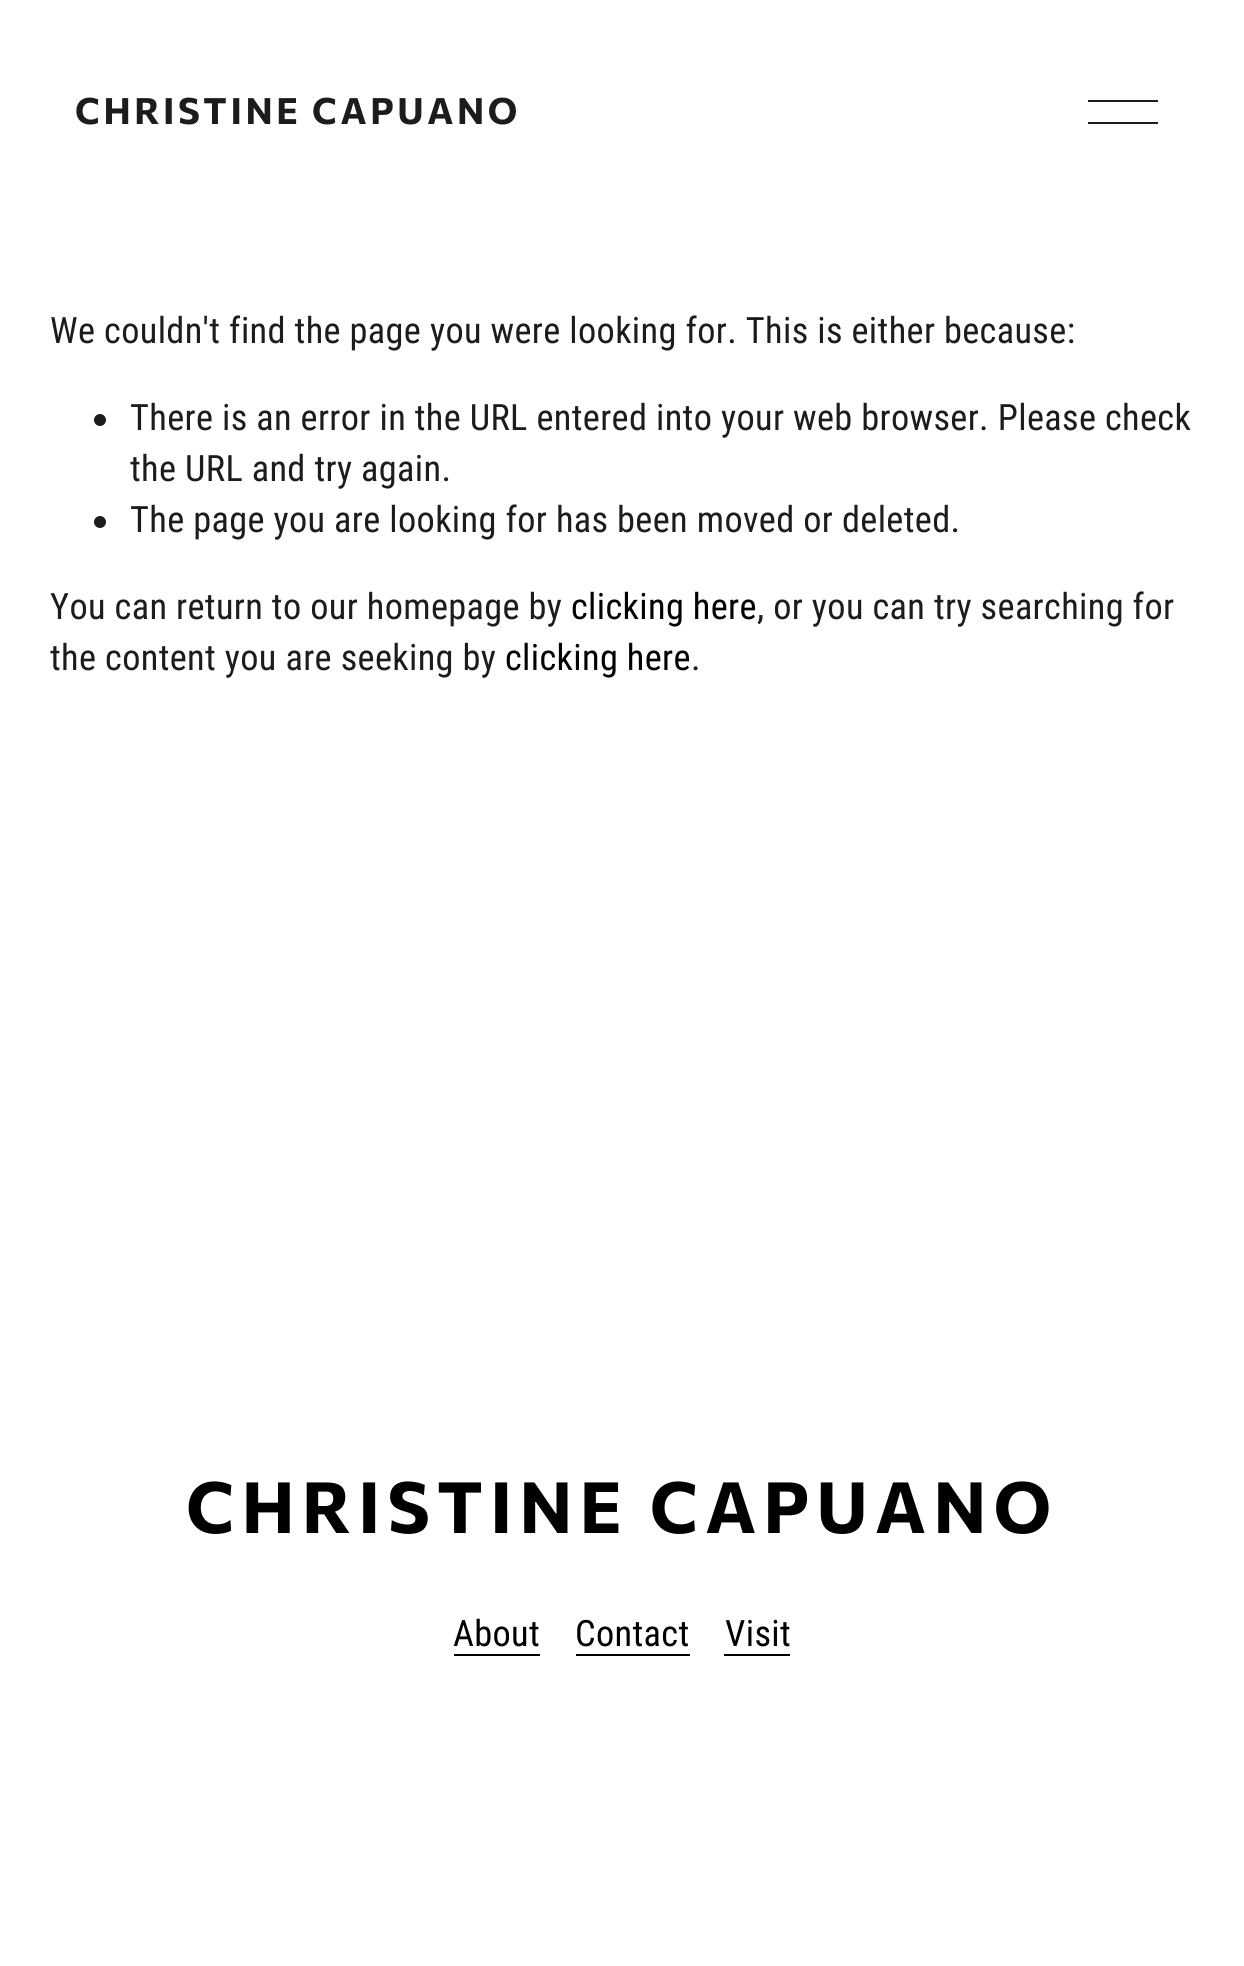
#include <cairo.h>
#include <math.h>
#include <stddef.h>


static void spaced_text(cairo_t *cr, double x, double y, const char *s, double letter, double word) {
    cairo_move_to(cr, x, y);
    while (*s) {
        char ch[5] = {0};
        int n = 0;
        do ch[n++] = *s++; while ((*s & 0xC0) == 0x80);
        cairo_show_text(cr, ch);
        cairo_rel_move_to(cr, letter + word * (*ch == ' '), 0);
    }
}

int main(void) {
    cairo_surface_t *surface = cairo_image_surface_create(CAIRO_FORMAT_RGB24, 1244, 1966);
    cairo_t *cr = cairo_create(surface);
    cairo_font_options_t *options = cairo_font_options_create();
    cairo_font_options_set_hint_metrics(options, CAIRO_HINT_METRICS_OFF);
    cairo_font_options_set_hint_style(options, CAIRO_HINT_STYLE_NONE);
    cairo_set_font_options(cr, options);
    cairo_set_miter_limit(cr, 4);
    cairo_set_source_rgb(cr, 1, 1, 1);
    cairo_paint(cr);
    cairo_select_font_face(cr, "Commissioner Thin", CAIRO_FONT_SLANT_NORMAL, CAIRO_FONT_WEIGHT_NORMAL);
    cairo_set_font_size(cr, 36.3);
    cairo_set_source_rgb(cr, 0.11, 0.11, 0.11);
    spaced_text(cr, 75, 124, "CHRISTINE CAPUANO", 3.6, 0);
    cairo_rectangle(cr, 1088, 100, 70, 2);
    cairo_fill(cr);
    cairo_rectangle(cr, 1088, 122, 70, 2);
    cairo_fill(cr);
    cairo_select_font_face(cr, "Roboto Condensed", CAIRO_FONT_SLANT_NORMAL, CAIRO_FONT_WEIGHT_NORMAL);
    spaced_text(cr, 50, 343, "We couldn't find the page you were looking for. This is either because:", 0.35, 0);
    cairo_new_path(cr);
    cairo_arc(cr, 100, 420, 6, 0, 2 * M_PI);
    cairo_fill(cr);
    spaced_text(cr, 130, 430, "There is an error in the URL entered into your web browser. Please check", 0.35, 0);
    spaced_text(cr, 130, 481, "the URL and try again.", 0.35, 0);
    cairo_new_path(cr);
    cairo_arc(cr, 100, 522, 6, 0, 2 * M_PI);
    cairo_fill(cr);
    spaced_text(cr, 130, 532, "The page you are looking for has been moved or deleted.", 0.35, 0);
    spaced_text(cr, 50, 619, "You can return to our homepage by", 0.35, 0);
    cairo_set_source_rgb(cr, 0, 0, 0);
    spaced_text(cr, 571, 619, "clicking here", 0.35, 0);
    cairo_set_source_rgb(cr, 0.11, 0.11, 0.11);
    spaced_text(cr, 757, 619, ", or you can try searching for", 0.35, 0);
    spaced_text(cr, 50, 670, "the content you are seeking by", 0.35, 0);
    cairo_set_source_rgb(cr, 0, 0, 0);
    spaced_text(cr, 505, 670, "clicking here", 0.35, 0);
    cairo_set_source_rgb(cr, 0.11, 0.11, 0.11);
    spaced_text(cr, 691, 670, ".", 0.35, 0);
    cairo_select_font_face(cr, "Commissioner Thin", CAIRO_FONT_SLANT_NORMAL, CAIRO_FONT_WEIGHT_NORMAL);
    cairo_set_font_size(cr, 70.9);
    cairo_set_source_rgb(cr, 0, 0, 0);
    spaced_text(cr, 186, 1533, "CHRISTINE CAPUANO", 7.1, 0);
    cairo_select_font_face(cr, "Roboto Condensed", CAIRO_FONT_SLANT_NORMAL, CAIRO_FONT_WEIGHT_NORMAL);
    cairo_set_font_size(cr, 36.3);
    spaced_text(cr, 453, 1646, "About", 0.35, 0);
    cairo_rectangle(cr, 454, 1654, 86, 2);
    cairo_fill(cr);
    spaced_text(cr, 575, 1646, "Contact", 0.35, 0);
    cairo_rectangle(cr, 576, 1654, 114, 2);
    cairo_fill(cr);
    spaced_text(cr, 725, 1646, "Visit", 0.35, 0);
    cairo_rectangle(cr, 724, 1654, 66, 2);
    cairo_fill(cr);
    cairo_surface_write_to_png(surface, "page.png");
    cairo_font_options_destroy(options);
    cairo_destroy(cr);
    cairo_surface_destroy(surface);
    return 0;
}
